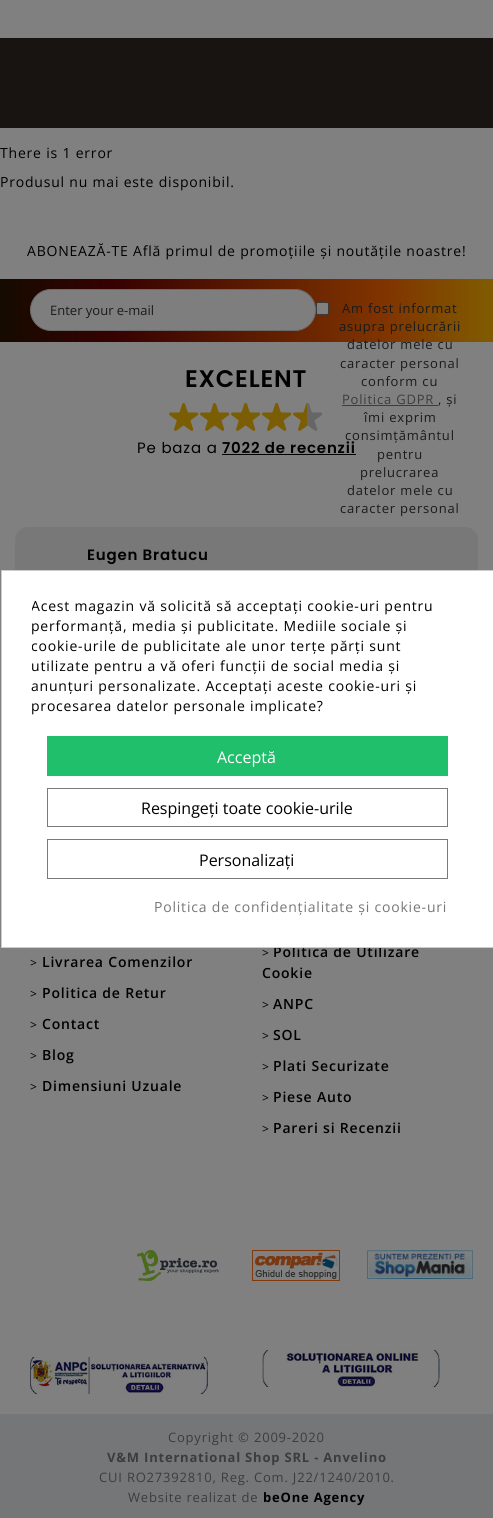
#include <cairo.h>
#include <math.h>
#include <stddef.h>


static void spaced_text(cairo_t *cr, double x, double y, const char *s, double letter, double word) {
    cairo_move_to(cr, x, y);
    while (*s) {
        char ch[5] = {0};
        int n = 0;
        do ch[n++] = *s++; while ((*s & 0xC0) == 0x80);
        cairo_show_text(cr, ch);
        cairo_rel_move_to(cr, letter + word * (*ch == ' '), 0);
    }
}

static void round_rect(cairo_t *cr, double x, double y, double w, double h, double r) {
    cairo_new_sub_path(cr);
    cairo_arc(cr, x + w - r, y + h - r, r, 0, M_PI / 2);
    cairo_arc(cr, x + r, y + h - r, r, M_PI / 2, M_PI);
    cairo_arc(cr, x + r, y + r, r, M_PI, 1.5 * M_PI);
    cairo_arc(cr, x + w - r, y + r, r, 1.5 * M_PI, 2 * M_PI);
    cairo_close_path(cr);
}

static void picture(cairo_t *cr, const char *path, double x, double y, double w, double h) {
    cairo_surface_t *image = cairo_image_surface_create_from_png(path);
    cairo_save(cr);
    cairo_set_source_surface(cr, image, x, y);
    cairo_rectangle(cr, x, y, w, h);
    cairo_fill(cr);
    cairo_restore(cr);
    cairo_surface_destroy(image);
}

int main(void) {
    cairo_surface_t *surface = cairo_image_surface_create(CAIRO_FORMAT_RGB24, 493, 1518);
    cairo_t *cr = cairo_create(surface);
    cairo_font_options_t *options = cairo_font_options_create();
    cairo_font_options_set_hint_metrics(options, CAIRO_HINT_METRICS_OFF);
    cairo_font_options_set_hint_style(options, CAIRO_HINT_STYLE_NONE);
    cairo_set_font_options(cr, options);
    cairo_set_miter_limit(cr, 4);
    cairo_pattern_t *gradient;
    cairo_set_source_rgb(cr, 0.502, 0.502, 0.502);
    cairo_paint(cr);
    cairo_set_source_rgb(cr, 0.094, 0.082, 0.071);
    cairo_rectangle(cr, 0, 38, 493, 90);
    cairo_fill(cr);
    cairo_select_font_face(cr, "Open Sans", CAIRO_FONT_SLANT_NORMAL, CAIRO_FONT_WEIGHT_NORMAL);
    cairo_set_font_size(cr, 14);
    cairo_set_source_rgb(cr, 0, 0, 0);
    spaced_text(cr, 0, 158, "There is 1 error", 0.8, 0);
    spaced_text(cr, 0, 187, "Produsul nu mai este disponibil.", 0.8, 0);
    spaced_text(cr, 27, 256, "ABONEAZĂ-TE Află primul de promoțiile și noutățile noastre!", 0.8, 0);
    gradient = cairo_pattern_create_linear(0, 311, 493, 311);
    cairo_pattern_add_color_stop_rgba(gradient, 0, 0.082, 0.043, 0, 1);
    cairo_pattern_add_color_stop_rgba(gradient, 0.23, 0.212, 0.004, 0.004, 1);
    cairo_pattern_add_color_stop_rgba(gradient, 0.78, 0.502, 0.204, 0, 1);
    cairo_pattern_add_color_stop_rgba(gradient, 0.99, 0.502, 0.353, 0, 1);
    cairo_set_source(cr, gradient);
    cairo_pattern_destroy(gradient);
    cairo_rectangle(cr, 0, 279, 493, 63);
    cairo_fill(cr);
    cairo_set_source_rgb(cr, 0.494, 0.494, 0.494);
    round_rect(cr, 30.5, 289.5, 285, 41, 20.5);
    cairo_fill_preserve(cr);
    cairo_set_source_rgb(cr, 0.42, 0.416, 0.416);
    cairo_set_line_width(cr, 1);
    cairo_stroke(cr);
    cairo_set_font_size(cr, 13);
    cairo_set_source_rgb(cr, 0.102, 0.102, 0.102);
    cairo_move_to(cr, 50, 315);
    cairo_show_text(cr, "Enter your e-mail");
    cairo_set_source_rgb(cr, 0.502, 0.502, 0.502);
    round_rect(cr, 316.5, 302.5, 12, 12, 1.5);
    cairo_fill_preserve(cr);
    cairo_set_source_rgb(cr, 0.231, 0.231, 0.231);
    cairo_stroke(cr);
    cairo_set_source_rgb(cr, 0.102, 0.102, 0.102);
    spaced_text(cr, 342, 313, "Am fost informat", 0.8, 0);
    spaced_text(cr, 339, 331, "asupra prelucrării", 0.8, 0);
    spaced_text(cr, 347, 349, "datelor mele cu", 0.8, 0);
    spaced_text(cr, 340, 368, "caracter personal", 0.8, 0);
    spaced_text(cr, 361, 386, "conform cu", 0.8, 0);
    cairo_set_source_rgb(cr, 0.235, 0.235, 0.235);
    spaced_text(cr, 342, 404, "Politica GDPR", 0.8, 0);
    cairo_rectangle(cr, 342, 405, 96, 1);
    cairo_fill(cr);
    cairo_set_source_rgb(cr, 0.102, 0.102, 0.102);
    spaced_text(cr, 438, 404, ", și", 0.8, 0);
    spaced_text(cr, 364, 422, "îmi exprim", 0.8, 0);
    spaced_text(cr, 345, 440, "consimțământul", 0.8, 0);
    spaced_text(cr, 377, 459, "pentru", 0.8, 0);
    spaced_text(cr, 360, 477, "prelucrarea", 0.8, 0);
    spaced_text(cr, 347, 495, "datelor mele cu", 0.8, 0);
    spaced_text(cr, 340, 513, "caracter personal", 0.8, 0);
    cairo_select_font_face(cr, "Poppins SemiBold", CAIRO_FONT_SLANT_NORMAL, CAIRO_FONT_WEIGHT_NORMAL);
    cairo_set_font_size(cr, 24);
    cairo_set_source_rgb(cr, 0, 0, 0);
    spaced_text(cr, 185, 387, "EXCELENT", 0.8, 0);
    picture(cr, "img1.png", 169, 403, 30, 28);
    picture(cr, "img1.png", 200, 403, 30, 28);
    picture(cr, "img1.png", 231, 403, 30, 28);
    picture(cr, "img1.png", 262, 403, 30, 28);
    picture(cr, "img2.png", 293, 403, 30, 28);
    cairo_select_font_face(cr, "Poppins", CAIRO_FONT_SLANT_NORMAL, CAIRO_FONT_WEIGHT_NORMAL);
    cairo_set_font_size(cr, 15);
    spaced_text(cr, 137, 453, "Pe baza a", 0.8, 0);
    cairo_select_font_face(cr, "Poppins SemiBold", CAIRO_FONT_SLANT_NORMAL, CAIRO_FONT_WEIGHT_NORMAL);
    spaced_text(cr, 222, 453, "7022 de recenzii", 0.8, 0);
    cairo_rectangle(cr, 222, 454, 134, 1);
    cairo_fill(cr);
    cairo_set_source_rgb(cr, 0.471, 0.471, 0.471);
    round_rect(cr, 15, 527, 463, 194, 13);
    cairo_fill(cr);
    cairo_set_source_rgb(cr, 0, 0, 0);
    spaced_text(cr, 87, 560, "Eugen Bratucu", 0.8, 0);
    cairo_select_font_face(cr, "Open Sans", CAIRO_FONT_SLANT_NORMAL, CAIRO_FONT_WEIGHT_NORMAL);
    cairo_set_font_size(cr, 12);
    spaced_text(cr, 30, 967, ">", 0.8, 0);
    cairo_select_font_face(cr, "Open Sans SemiBold", CAIRO_FONT_SLANT_NORMAL, CAIRO_FONT_WEIGHT_NORMAL);
    cairo_set_font_size(cr, 14);
    spaced_text(cr, 42, 967, "Livrarea Comenzilor", 0.8, 0);
    cairo_select_font_face(cr, "Open Sans", CAIRO_FONT_SLANT_NORMAL, CAIRO_FONT_WEIGHT_NORMAL);
    cairo_set_font_size(cr, 12);
    spaced_text(cr, 30, 998, ">", 0.8, 0);
    cairo_select_font_face(cr, "Open Sans SemiBold", CAIRO_FONT_SLANT_NORMAL, CAIRO_FONT_WEIGHT_NORMAL);
    cairo_set_font_size(cr, 14);
    spaced_text(cr, 42, 998, "Politica de Retur", 0.8, 0);
    cairo_select_font_face(cr, "Open Sans", CAIRO_FONT_SLANT_NORMAL, CAIRO_FONT_WEIGHT_NORMAL);
    cairo_set_font_size(cr, 12);
    spaced_text(cr, 30, 1029, ">", 0.8, 0);
    cairo_select_font_face(cr, "Open Sans SemiBold", CAIRO_FONT_SLANT_NORMAL, CAIRO_FONT_WEIGHT_NORMAL);
    cairo_set_font_size(cr, 14);
    spaced_text(cr, 42, 1029, "Contact", 0.8, 0);
    cairo_select_font_face(cr, "Open Sans", CAIRO_FONT_SLANT_NORMAL, CAIRO_FONT_WEIGHT_NORMAL);
    cairo_set_font_size(cr, 12);
    spaced_text(cr, 30, 1060, ">", 0.8, 0);
    cairo_select_font_face(cr, "Open Sans SemiBold", CAIRO_FONT_SLANT_NORMAL, CAIRO_FONT_WEIGHT_NORMAL);
    cairo_set_font_size(cr, 14);
    spaced_text(cr, 42, 1060, "Blog", 0.8, 0);
    cairo_select_font_face(cr, "Open Sans", CAIRO_FONT_SLANT_NORMAL, CAIRO_FONT_WEIGHT_NORMAL);
    cairo_set_font_size(cr, 12);
    spaced_text(cr, 30, 1091, ">", 0.8, 0);
    cairo_select_font_face(cr, "Open Sans SemiBold", CAIRO_FONT_SLANT_NORMAL, CAIRO_FONT_WEIGHT_NORMAL);
    cairo_set_font_size(cr, 14);
    spaced_text(cr, 42, 1091, "Dimensiuni Uzuale", 0.8, 0);
    cairo_select_font_face(cr, "Open Sans", CAIRO_FONT_SLANT_NORMAL, CAIRO_FONT_WEIGHT_NORMAL);
    cairo_set_font_size(cr, 12);
    spaced_text(cr, 262, 957, ">", 0.8, 0);
    cairo_select_font_face(cr, "Open Sans SemiBold", CAIRO_FONT_SLANT_NORMAL, CAIRO_FONT_WEIGHT_NORMAL);
    cairo_set_font_size(cr, 14);
    spaced_text(cr, 273, 957, "Politica de Utilizare", 0.8, 0);
    spaced_text(cr, 262, 978, "Cookie", 0.8, 0);
    cairo_select_font_face(cr, "Open Sans", CAIRO_FONT_SLANT_NORMAL, CAIRO_FONT_WEIGHT_NORMAL);
    cairo_set_font_size(cr, 12);
    spaced_text(cr, 262, 1009, ">", 0.8, 0);
    cairo_select_font_face(cr, "Open Sans SemiBold", CAIRO_FONT_SLANT_NORMAL, CAIRO_FONT_WEIGHT_NORMAL);
    cairo_set_font_size(cr, 14);
    spaced_text(cr, 273, 1009, "ANPC", 0.8, 0);
    cairo_select_font_face(cr, "Open Sans", CAIRO_FONT_SLANT_NORMAL, CAIRO_FONT_WEIGHT_NORMAL);
    cairo_set_font_size(cr, 12);
    spaced_text(cr, 262, 1040, ">", 0.8, 0);
    cairo_select_font_face(cr, "Open Sans SemiBold", CAIRO_FONT_SLANT_NORMAL, CAIRO_FONT_WEIGHT_NORMAL);
    cairo_set_font_size(cr, 14);
    spaced_text(cr, 273, 1040, "SOL", 0.8, 0);
    cairo_select_font_face(cr, "Open Sans", CAIRO_FONT_SLANT_NORMAL, CAIRO_FONT_WEIGHT_NORMAL);
    cairo_set_font_size(cr, 12);
    spaced_text(cr, 262, 1071, ">", 0.8, 0);
    cairo_select_font_face(cr, "Open Sans SemiBold", CAIRO_FONT_SLANT_NORMAL, CAIRO_FONT_WEIGHT_NORMAL);
    cairo_set_font_size(cr, 14);
    spaced_text(cr, 273, 1071, "Plati Securizate", 0.8, 0);
    cairo_select_font_face(cr, "Open Sans", CAIRO_FONT_SLANT_NORMAL, CAIRO_FONT_WEIGHT_NORMAL);
    cairo_set_font_size(cr, 12);
    spaced_text(cr, 262, 1102, ">", 0.8, 0);
    cairo_select_font_face(cr, "Open Sans SemiBold", CAIRO_FONT_SLANT_NORMAL, CAIRO_FONT_WEIGHT_NORMAL);
    cairo_set_font_size(cr, 14);
    spaced_text(cr, 273, 1102, "Piese Auto", 0.8, 0);
    cairo_select_font_face(cr, "Open Sans", CAIRO_FONT_SLANT_NORMAL, CAIRO_FONT_WEIGHT_NORMAL);
    cairo_set_font_size(cr, 12);
    spaced_text(cr, 262, 1133, ">", 0.8, 0);
    cairo_select_font_face(cr, "Open Sans SemiBold", CAIRO_FONT_SLANT_NORMAL, CAIRO_FONT_WEIGHT_NORMAL);
    cairo_set_font_size(cr, 14);
    spaced_text(cr, 273, 1133, "Pareri si Recenzii", 0.8, 0);
    picture(cr, "img3.png", 136, 1250, 83, 31);
    picture(cr, "img4.png", 252, 1250, 88, 31);
    picture(cr, "img5.png", 367, 1250, 106, 29);
    picture(cr, "img6.png", 30, 1357, 178, 37);
    picture(cr, "img7.png", 262, 1350, 178, 37);
    cairo_set_source_rgb(cr, 0.459, 0.463, 0.467);
    cairo_rectangle(cr, 0, 1414, 493, 104);
    cairo_fill(cr);
    cairo_select_font_face(cr, "Open Sans", CAIRO_FONT_SLANT_NORMAL, CAIRO_FONT_WEIGHT_NORMAL);
    cairo_set_font_size(cr, 13);
    cairo_set_source_rgb(cr, 0.235, 0.235, 0.235);
    spaced_text(cr, 168, 1442, "Copyright © 2009-2020", 0.8, 0);
    cairo_select_font_face(cr, "Open Sans", CAIRO_FONT_SLANT_NORMAL, CAIRO_FONT_WEIGHT_BOLD);
    spaced_text(cr, 107, 1462, "V&M International Shop SRL - Anvelino", 0.8, 0);
    cairo_select_font_face(cr, "Open Sans", CAIRO_FONT_SLANT_NORMAL, CAIRO_FONT_WEIGHT_NORMAL);
    spaced_text(cr, 99, 1482, "CUI RO27392810, Reg. Com. J22/1240/2010.", 0.8, 0);
    spaced_text(cr, 128, 1502, "Website realizat de", 0.8, 0);
    cairo_select_font_face(cr, "Open Sans", CAIRO_FONT_SLANT_NORMAL, CAIRO_FONT_WEIGHT_BOLD);
    cairo_set_source_rgb(cr, 0, 0, 0);
    spaced_text(cr, 263, 1502, "beOne Agency", 0.8, 0);
    cairo_set_source_rgb(cr, 1, 1, 1);
    cairo_rectangle(cr, 1.5, 570.5, 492, 377);
    cairo_fill_preserve(cr);
    cairo_set_source_rgb(cr, 0.8, 0.8, 0.8);
    cairo_stroke(cr);
    cairo_save(cr);
    cairo_rectangle(cr, 32, 596, 431, 120);
    cairo_clip(cr);
    cairo_select_font_face(cr, "Open Sans", CAIRO_FONT_SLANT_NORMAL, CAIRO_FONT_WEIGHT_NORMAL);
    cairo_set_font_size(cr, 14);
    cairo_set_source_rgb(cr, 0, 0, 0);
    spaced_text(cr, 31, 611, "Acest magazin vă solicită să acceptați cookie-uri pentru", 0.8, 0);
    cairo_restore(cr);
    cairo_select_font_face(cr, "Open Sans", CAIRO_FONT_SLANT_NORMAL, CAIRO_FONT_WEIGHT_NORMAL);
    cairo_set_font_size(cr, 14);
    cairo_set_source_rgb(cr, 0, 0, 0);
    spaced_text(cr, 31, 631, "performanță, media și publicitate. Mediile sociale și", 0.8, 0);
    cairo_save(cr);
    cairo_rectangle(cr, 32, 596, 431, 120);
    cairo_clip(cr);
    spaced_text(cr, 31, 651, "cookie-urile de publicitate ale unor terțe părți sunt", 0.8, 0);
    cairo_restore(cr);
    spaced_text(cr, 31, 671, "utilizate pentru a vă oferi funcții de social media și", 0.8, 0);
    spaced_text(cr, 31, 691, "anunțuri personalizate. Acceptați aceste cookie-uri și", 0.8, 0);
    spaced_text(cr, 31, 711, "procesarea datelor personale implicate?", 0.8, 0);
    cairo_set_source_rgb(cr, 0.125, 0.749, 0.42);
    cairo_rectangle(cr, 47, 736, 401, 40);
    cairo_fill(cr);
    cairo_set_font_size(cr, 16);
    cairo_set_source_rgb(cr, 1, 1, 1);
    cairo_move_to(cr, 217, 763);
    cairo_show_text(cr, "Acceptă");
    cairo_rectangle(cr, 47.5, 788.5, 400, 38);
    cairo_set_source_rgb(cr, 0.478, 0.478, 0.478);
    cairo_stroke(cr);
    cairo_set_source_rgb(cr, 0, 0, 0);
    cairo_move_to(cr, 141, 814);
    cairo_show_text(cr, "Respingeți toate cookie-urile");
    cairo_rectangle(cr, 47.5, 839.5, 400, 39);
    cairo_set_source_rgb(cr, 0.478, 0.478, 0.478);
    cairo_stroke(cr);
    cairo_set_source_rgb(cr, 0, 0, 0);
    cairo_move_to(cr, 199, 866);
    cairo_show_text(cr, "Personalizați");
    cairo_set_font_size(cr, 14);
    cairo_set_source_rgb(cr, 0.467, 0.467, 0.467);
    spaced_text(cr, 154, 912, "Politica de confidențialitate și cookie-uri", 0.8, 0);
    cairo_surface_write_to_png(surface, "page.png");
    cairo_font_options_destroy(options);
    cairo_destroy(cr);
    cairo_surface_destroy(surface);
    return 0;
}
